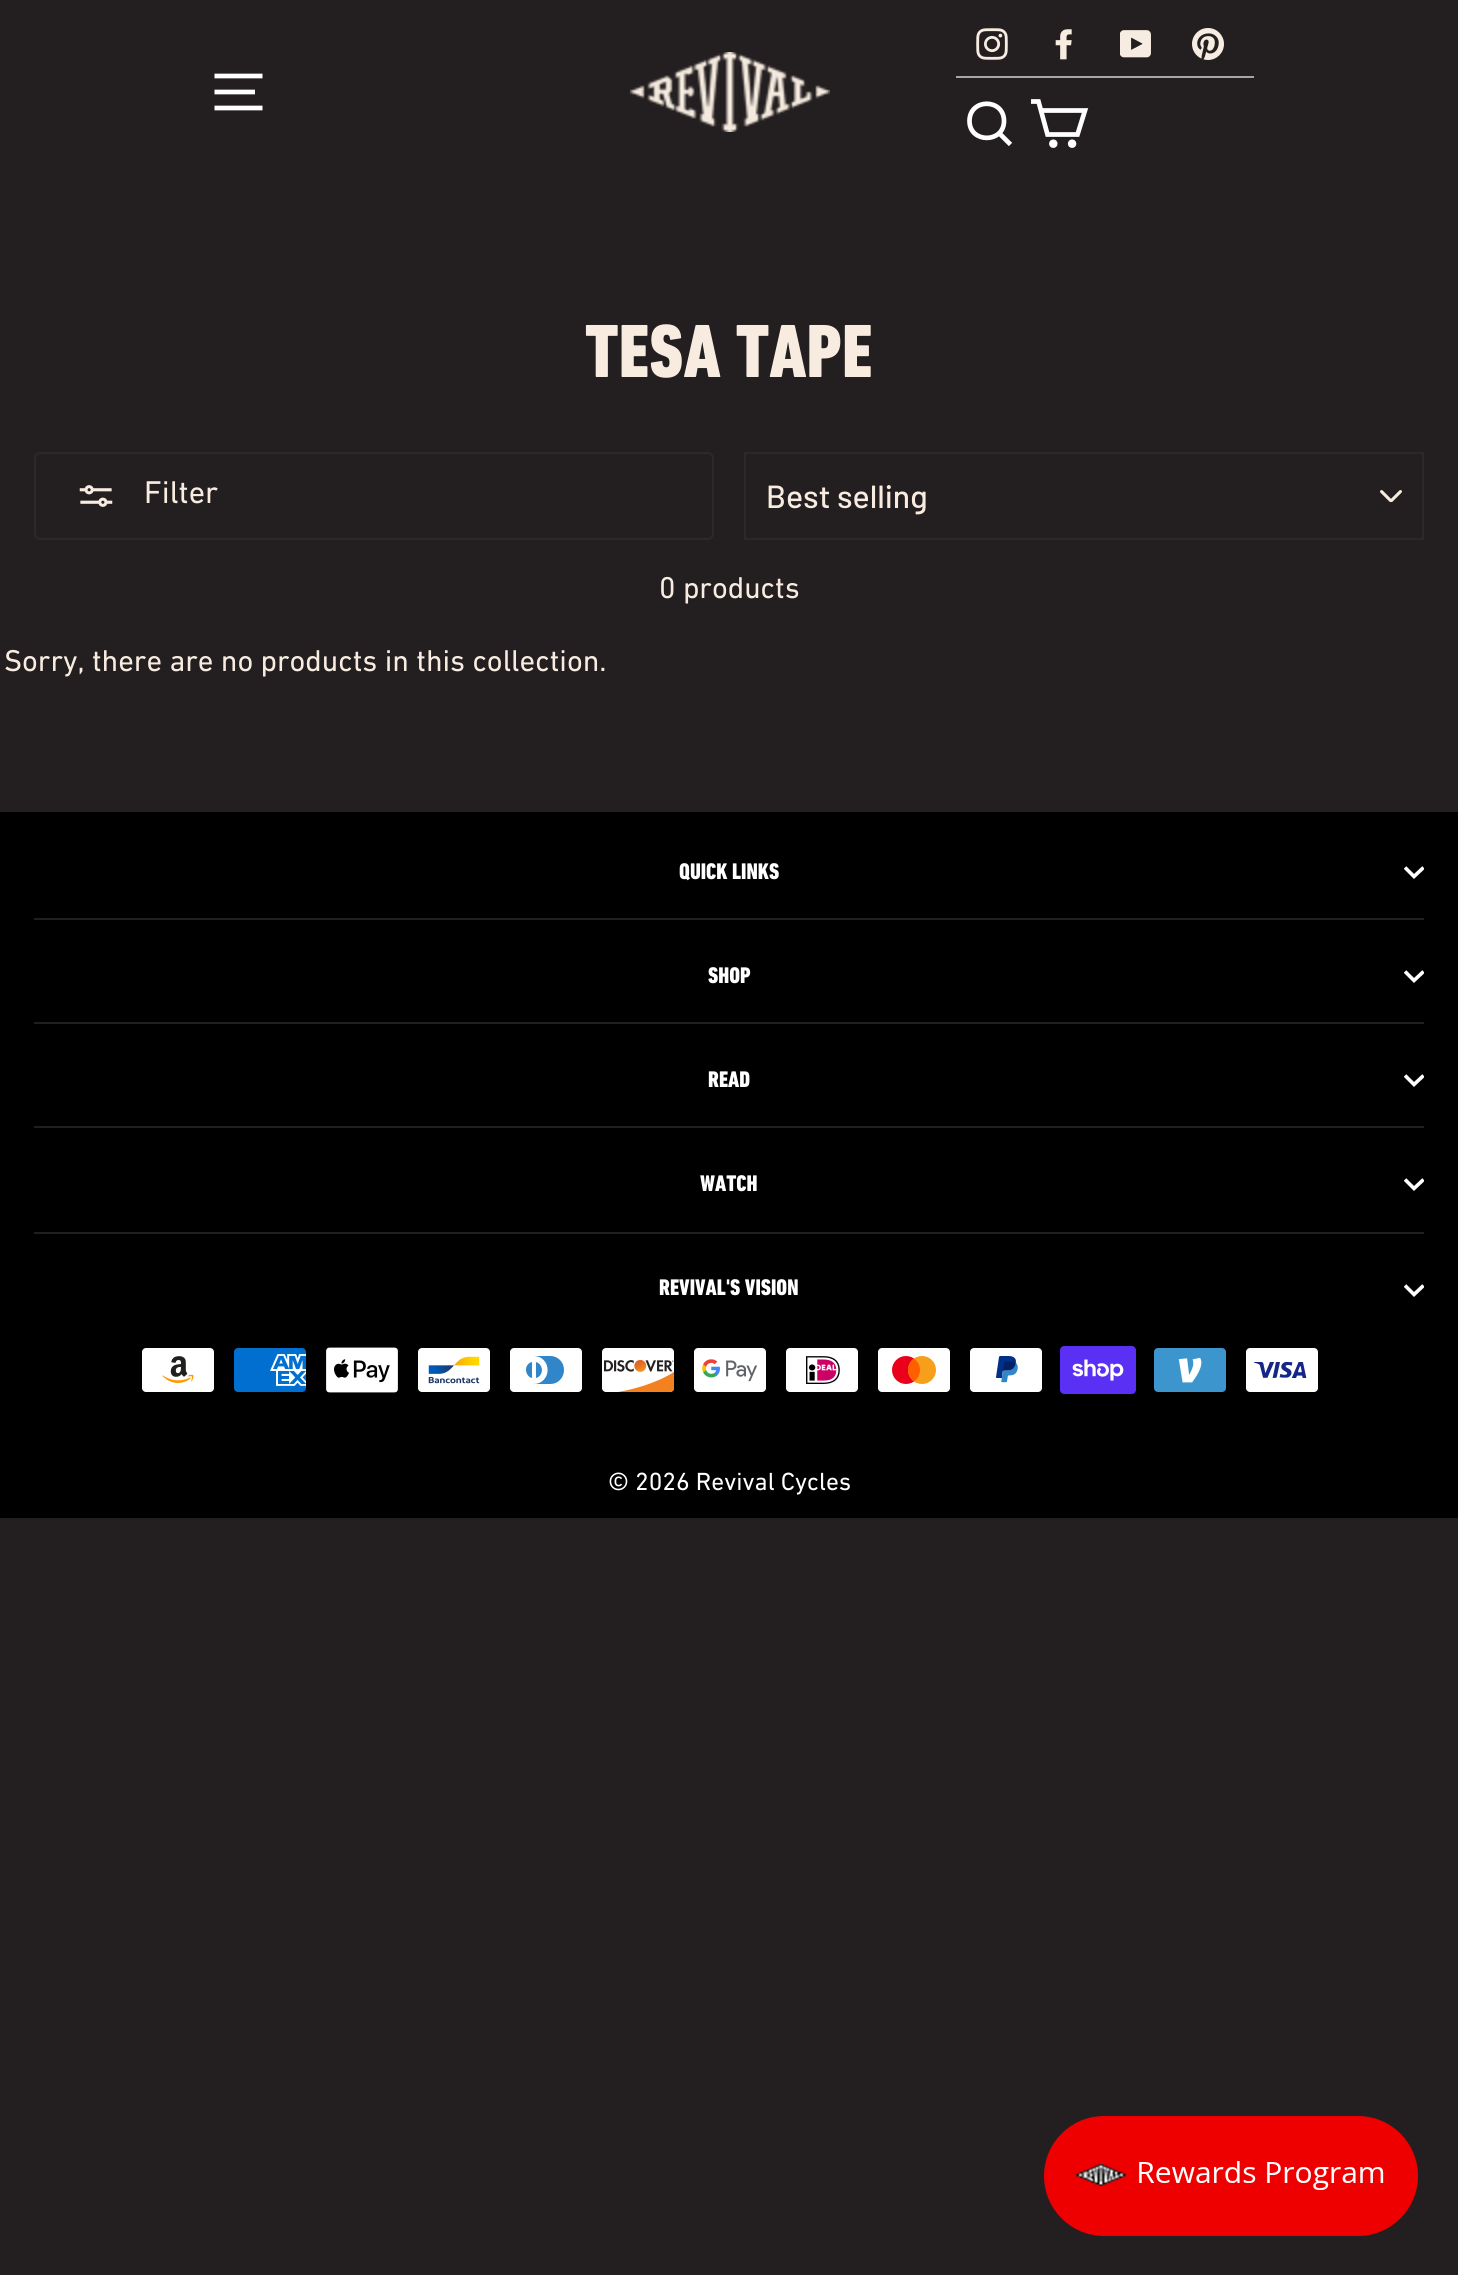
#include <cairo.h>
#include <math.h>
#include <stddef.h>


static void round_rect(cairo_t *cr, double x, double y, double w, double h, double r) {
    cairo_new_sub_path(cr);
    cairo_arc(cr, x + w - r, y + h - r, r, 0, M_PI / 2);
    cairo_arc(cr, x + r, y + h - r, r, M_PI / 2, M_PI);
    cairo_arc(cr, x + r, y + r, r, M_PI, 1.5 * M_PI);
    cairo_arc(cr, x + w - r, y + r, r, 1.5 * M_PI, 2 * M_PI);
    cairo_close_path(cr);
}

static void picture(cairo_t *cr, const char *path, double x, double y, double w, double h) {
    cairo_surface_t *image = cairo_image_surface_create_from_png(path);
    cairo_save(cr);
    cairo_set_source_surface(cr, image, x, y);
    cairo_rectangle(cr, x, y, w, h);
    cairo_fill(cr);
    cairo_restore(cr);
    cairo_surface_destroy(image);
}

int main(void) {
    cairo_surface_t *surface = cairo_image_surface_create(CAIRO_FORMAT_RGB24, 1458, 2275);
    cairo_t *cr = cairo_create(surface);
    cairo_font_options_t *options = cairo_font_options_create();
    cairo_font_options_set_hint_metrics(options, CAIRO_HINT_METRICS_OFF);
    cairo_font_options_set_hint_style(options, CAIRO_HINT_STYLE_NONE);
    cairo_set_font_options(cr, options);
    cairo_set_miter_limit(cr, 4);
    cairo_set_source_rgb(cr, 0.137, 0.122, 0.125);
    cairo_paint(cr);
    cairo_new_path(cr);
    cairo_move_to(cr, 214.5, 76);
    cairo_line_to(cr, 262.5, 76);
    cairo_move_to(cr, 214.5, 92);
    cairo_line_to(cr, 255, 92);
    cairo_move_to(cr, 214.5, 108);
    cairo_line_to(cr, 262.5, 108);
    cairo_set_source_rgb(cr, 1, 1, 1);
    cairo_set_line_width(cr, 4.7);
    cairo_stroke(cr);
    picture(cr, "img1.png", 630, 52, 200, 80);
    cairo_set_source_rgb(cr, 0.655, 0.647, 0.651);
    cairo_rectangle(cr, 956, 76, 298, 2);
    cairo_fill(cr);
    picture(cr, "img2.png", 976, 28, 32, 32);
    picture(cr, "img3.png", 1055, 29, 17, 31);
    picture(cr, "img4.png", 1120, 30, 31, 28);
    picture(cr, "img5.png", 1192, 28, 32, 32);
    cairo_new_path(cr);
    cairo_move_to(cr, 1004, 121);
    cairo_curve_to(cr, 1004, 143.5, 969.5, 143.5, 969.5, 121);
    cairo_curve_to(cr, 969.5, 98, 1004, 98, 1004, 121);
    cairo_close_path(cr);
    cairo_move_to(cr, 1010.5, 144.5);
    cairo_line_to(cr, 999.5, 133.5);
    cairo_set_source_rgb(cr, 1, 1, 1);
    cairo_stroke(cr);
    cairo_new_path(cr);
    cairo_move_to(cr, 1041, 110.5);
    cairo_line_to(cr, 1085, 110.5);
    cairo_line_to(cr, 1077.5, 134.5);
    cairo_line_to(cr, 1047.5, 134.5);
    cairo_line_to(cr, 1038.5, 101.5);
    cairo_line_to(cr, 1031, 101.5);
    cairo_stroke(cr);
    cairo_arc(cr, 1053.3, 143.7, 1.9, 0, 2 * M_PI);
    cairo_fill_preserve(cr);
    cairo_stroke(cr);
    cairo_arc(cr, 1072.1, 143.7, 1.9, 0, 2 * M_PI);
    cairo_fill_preserve(cr);
    cairo_stroke(cr);
    cairo_select_font_face(cr, "DIN Next Black", CAIRO_FONT_SLANT_NORMAL, CAIRO_FONT_WEIGHT_NORMAL);
    cairo_set_font_size(cr, 76.5);
    cairo_set_source_rgb(cr, 0.969, 0.925, 0.882);
    cairo_move_to(cr, 585, 377);
    cairo_show_text(cr, "TESA TAPE");
    round_rect(cr, 35, 453, 678, 86, 5);
    cairo_set_source_rgb(cr, 0.169, 0.165, 0.153);
    cairo_set_line_width(cr, 2);
    cairo_stroke(cr);
    picture(cr, "img6.png", 79, 485, 34, 22);
    cairo_select_font_face(cr, "DIN Next", CAIRO_FONT_SLANT_NORMAL, CAIRO_FONT_WEIGHT_NORMAL);
    cairo_set_font_size(cr, 32);
    cairo_set_source_rgb(cr, 0.969, 0.925, 0.882);
    cairo_move_to(cr, 144, 503);
    cairo_show_text(cr, "Filter");
    picture(cr, "img7.png", 1380, 490, 22, 12);
    cairo_rectangle(cr, 745, 453, 678, 86);
    cairo_set_source_rgb(cr, 0.169, 0.165, 0.153);
    cairo_stroke(cr);
    cairo_select_font_face(cr, "Barlow Medium", CAIRO_FONT_SLANT_NORMAL, CAIRO_FONT_WEIGHT_NORMAL);
    cairo_set_source_rgb(cr, 0.969, 0.925, 0.882);
    cairo_move_to(cr, 766, 508);
    cairo_show_text(cr, "Best selling");
    cairo_select_font_face(cr, "DIN Next", CAIRO_FONT_SLANT_NORMAL, CAIRO_FONT_WEIGHT_NORMAL);
    cairo_set_font_size(cr, 30.6);
    cairo_move_to(cr, 659, 598);
    cairo_show_text(cr, "0 products");
    cairo_move_to(cr, 4, 671);
    cairo_show_text(cr, "Sorry, there are no products in this collection.");
    cairo_set_source_rgb(cr, 0, 0, 0);
    cairo_rectangle(cr, 0, 812, 1458, 706);
    cairo_fill(cr);
    cairo_select_font_face(cr, "DIN Next Black", CAIRO_FONT_SLANT_NORMAL, CAIRO_FONT_WEIGHT_NORMAL);
    cairo_set_font_size(cr, 23);
    cairo_set_source_rgb(cr, 1, 1, 1);
    cairo_move_to(cr, 679, 879);
    cairo_show_text(cr, "QUICK LINKS");
    cairo_save(cr);
    cairo_rectangle(cr, 1404, 862, 20, 20);
    cairo_clip(cr);
    cairo_new_path(cr);
    cairo_move_to(cr, 1405, 867.5);
    cairo_line_to(cr, 1414, 876.5);
    cairo_line_to(cr, 1423.5, 867.5);
    cairo_set_line_width(cr, 3.6);
    cairo_stroke(cr);
    cairo_restore(cr);
    cairo_set_source_rgb(cr, 0.122, 0.122, 0.122);
    cairo_rectangle(cr, 34, 918, 1390, 2);
    cairo_fill(cr);
    cairo_set_source_rgb(cr, 1, 1, 1);
    cairo_move_to(cr, 708, 983);
    cairo_show_text(cr, "SHOP");
    cairo_save(cr);
    cairo_rectangle(cr, 1404, 966, 20, 20);
    cairo_clip(cr);
    cairo_new_path(cr);
    cairo_move_to(cr, 1405, 971.5);
    cairo_line_to(cr, 1414, 980.5);
    cairo_line_to(cr, 1423.5, 971.5);
    cairo_set_line_width(cr, 3.6);
    cairo_stroke(cr);
    cairo_restore(cr);
    cairo_set_source_rgb(cr, 0.122, 0.122, 0.122);
    cairo_rectangle(cr, 34, 1022, 1390, 2);
    cairo_fill(cr);
    cairo_set_source_rgb(cr, 1, 1, 1);
    cairo_move_to(cr, 708, 1087);
    cairo_show_text(cr, "READ");
    cairo_save(cr);
    cairo_rectangle(cr, 1404, 1070, 20, 20);
    cairo_clip(cr);
    cairo_new_path(cr);
    cairo_move_to(cr, 1405, 1075.5);
    cairo_line_to(cr, 1414, 1084.5);
    cairo_line_to(cr, 1423.5, 1075.5);
    cairo_set_line_width(cr, 3.6);
    cairo_stroke(cr);
    cairo_restore(cr);
    cairo_set_source_rgb(cr, 0.122, 0.122, 0.122);
    cairo_rectangle(cr, 34, 1126, 1390, 2);
    cairo_fill(cr);
    cairo_set_source_rgb(cr, 1, 1, 1);
    cairo_move_to(cr, 700, 1191);
    cairo_show_text(cr, "WATCH");
    cairo_save(cr);
    cairo_rectangle(cr, 1404, 1174, 20, 20);
    cairo_clip(cr);
    cairo_new_path(cr);
    cairo_move_to(cr, 1405, 1179.5);
    cairo_line_to(cr, 1414, 1188.5);
    cairo_line_to(cr, 1423.5, 1179.5);
    cairo_set_line_width(cr, 3.6);
    cairo_stroke(cr);
    cairo_restore(cr);
    cairo_set_source_rgb(cr, 0.122, 0.122, 0.122);
    cairo_rectangle(cr, 34, 1232, 1390, 2);
    cairo_fill(cr);
    cairo_set_source_rgb(cr, 1, 1, 1);
    cairo_move_to(cr, 659, 1295);
    cairo_show_text(cr, "REVIVAL'S VISION");
    cairo_save(cr);
    cairo_rectangle(cr, 1404, 1280, 20, 20);
    cairo_clip(cr);
    cairo_new_path(cr);
    cairo_move_to(cr, 1405, 1285.5);
    cairo_line_to(cr, 1414, 1294.5);
    cairo_line_to(cr, 1423.5, 1285.5);
    cairo_set_line_width(cr, 3.6);
    cairo_stroke(cr);
    cairo_restore(cr);
    picture(cr, "img8.png", 142, 1348, 72, 44);
    picture(cr, "img9.png", 234, 1348, 72, 44);
    picture(cr, "img10.png", 326, 1347, 72, 46);
    picture(cr, "img11.png", 418, 1348, 72, 44);
    picture(cr, "img12.png", 510, 1348, 72, 44);
    picture(cr, "img13.png", 602, 1348, 73, 44);
    picture(cr, "img14.png", 694, 1348, 72, 44);
    picture(cr, "img15.png", 786, 1348, 72, 44);
    picture(cr, "img16.png", 878, 1348, 72, 44);
    picture(cr, "img17.png", 970, 1348, 72, 44);
    picture(cr, "img18.png", 1060, 1346, 76, 48);
    picture(cr, "img19.png", 1154, 1348, 72, 44);
    picture(cr, "img20.png", 1246, 1348, 72, 44);
    cairo_select_font_face(cr, "DIN Next", CAIRO_FONT_SLANT_NORMAL, CAIRO_FONT_WEIGHT_NORMAL);
    cairo_set_font_size(cr, 25.25);
    cairo_move_to(cr, 608, 1490);
    cairo_show_text(cr, "© 2026 Revival Cycles");
    cairo_set_source_rgb(cr, 0.933, 0, 0);
    round_rect(cr, 1044, 2116, 374, 120, 60);
    cairo_fill(cr);
    picture(cr, "img21.png", 1076, 2161, 308, 29);
    cairo_surface_write_to_png(surface, "page.png");
    cairo_font_options_destroy(options);
    cairo_destroy(cr);
    cairo_surface_destroy(surface);
    return 0;
}
